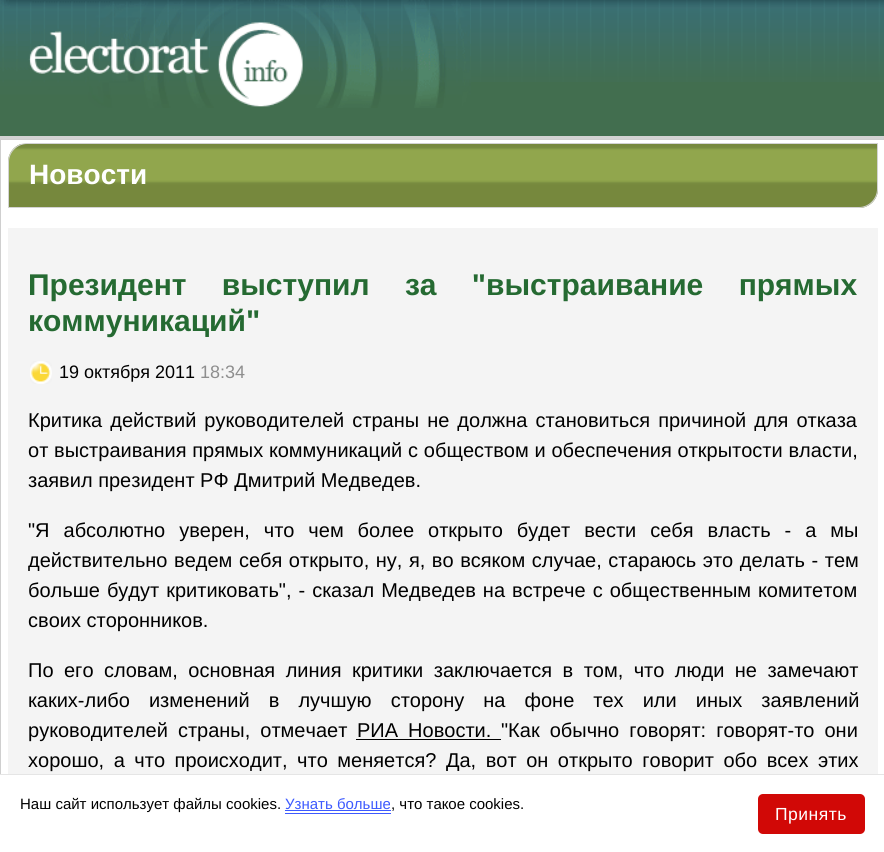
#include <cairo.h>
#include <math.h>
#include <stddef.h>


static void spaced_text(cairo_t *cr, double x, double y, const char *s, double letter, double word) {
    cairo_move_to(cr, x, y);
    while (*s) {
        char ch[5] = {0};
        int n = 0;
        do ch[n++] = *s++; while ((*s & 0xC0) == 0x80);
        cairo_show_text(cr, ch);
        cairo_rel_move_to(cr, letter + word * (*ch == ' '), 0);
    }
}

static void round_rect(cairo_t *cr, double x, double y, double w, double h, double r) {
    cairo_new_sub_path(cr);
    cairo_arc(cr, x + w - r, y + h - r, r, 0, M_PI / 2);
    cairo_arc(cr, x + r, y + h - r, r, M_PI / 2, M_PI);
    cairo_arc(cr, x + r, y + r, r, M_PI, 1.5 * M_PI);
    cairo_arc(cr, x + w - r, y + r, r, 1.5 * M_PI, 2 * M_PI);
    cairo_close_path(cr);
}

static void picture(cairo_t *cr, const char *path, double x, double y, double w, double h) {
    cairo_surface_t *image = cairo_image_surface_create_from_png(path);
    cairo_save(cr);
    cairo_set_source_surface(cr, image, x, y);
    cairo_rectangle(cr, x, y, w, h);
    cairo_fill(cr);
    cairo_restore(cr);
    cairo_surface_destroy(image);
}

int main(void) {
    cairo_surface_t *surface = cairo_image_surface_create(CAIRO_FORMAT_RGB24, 884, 852);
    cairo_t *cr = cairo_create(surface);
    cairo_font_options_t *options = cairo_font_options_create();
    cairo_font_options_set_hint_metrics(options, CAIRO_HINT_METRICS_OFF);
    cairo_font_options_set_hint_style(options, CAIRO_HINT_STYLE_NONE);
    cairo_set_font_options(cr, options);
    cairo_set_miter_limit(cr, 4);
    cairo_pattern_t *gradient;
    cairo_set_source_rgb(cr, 0.259, 0.431, 0.31);
    cairo_paint(cr);
    picture(cr, "img1.png", 471, 0, 413, 82);
    picture(cr, "img2.png", 0, 0, 471, 108);
    cairo_set_source_rgb(cr, 0.827, 0.827, 0.827);
    cairo_rectangle(cr, 0, 136, 884, 3);
    cairo_fill(cr);
    cairo_set_source_rgb(cr, 1, 1, 1);
    cairo_rectangle(cr, 1, 140, 883, 634);
    cairo_fill(cr);
    cairo_rectangle(cr, 0.5, 139.5, 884, 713);
    cairo_set_source_rgb(cr, 0.812, 0.812, 0.812);
    cairo_set_line_width(cr, 1);
    cairo_stroke(cr);
    cairo_save(cr);
    cairo_new_path(cr);
    cairo_move_to(cr, 27, 143);
    cairo_line_to(cr, 878, 143);
    cairo_line_to(cr, 878, 189);
    cairo_curve_to(cr, 878, 199.5, 869.5, 208, 859, 208);
    cairo_line_to(cr, 8, 208);
    cairo_line_to(cr, 8, 162);
    cairo_curve_to(cr, 8, 151.5, 16.5, 143, 27, 143);
    cairo_close_path(cr);
    cairo_clip(cr);
    gradient = cairo_pattern_create_linear(443, 144, 443, 206);
    cairo_pattern_add_color_stop_rgba(gradient, 0, 0.463, 0.533, 0.239, 1);
    cairo_pattern_add_color_stop_rgba(gradient, 0.03, 0.463, 0.533, 0.239, 1);
    cairo_pattern_add_color_stop_rgba(gradient, 0.06, 0.471, 0.549, 0.251, 1);
    cairo_pattern_add_color_stop_rgba(gradient, 0.09, 0.549, 0.631, 0.29, 1);
    cairo_pattern_add_color_stop_rgba(gradient, 0.11, 0.569, 0.651, 0.302, 1);
    cairo_pattern_add_color_stop_rgba(gradient, 0.57, 0.569, 0.651, 0.302, 1);
    cairo_pattern_add_color_stop_rgba(gradient, 0.6, 0.549, 0.631, 0.29, 1);
    cairo_pattern_add_color_stop_rgba(gradient, 0.63, 0.471, 0.549, 0.251, 1);
    cairo_pattern_add_color_stop_rgba(gradient, 0.66, 0.463, 0.533, 0.239, 1);
    cairo_pattern_add_color_stop_rgba(gradient, 0.99, 0.463, 0.533, 0.239, 1);
    cairo_set_source(cr, gradient);
    cairo_pattern_destroy(gradient);
    cairo_rectangle(cr, 8, 144, 870, 62);
    cairo_fill(cr);
    gradient = cairo_pattern_create_linear(443, 206, 443, 269);
    cairo_pattern_add_color_stop_rgba(gradient, 0, 0.463, 0.533, 0.239, 1);
    cairo_pattern_add_color_stop_rgba(gradient, 0.03, 0.463, 0.533, 0.239, 1);
    cairo_pattern_add_color_stop_rgba(gradient, 0.06, 0.471, 0.549, 0.251, 1);
    cairo_pattern_add_color_stop_rgba(gradient, 0.09, 0.549, 0.631, 0.29, 1);
    cairo_pattern_add_color_stop_rgba(gradient, 0.11, 0.569, 0.651, 0.302, 1);
    cairo_pattern_add_color_stop_rgba(gradient, 0.57, 0.569, 0.651, 0.302, 1);
    cairo_pattern_add_color_stop_rgba(gradient, 0.6, 0.549, 0.631, 0.29, 1);
    cairo_pattern_add_color_stop_rgba(gradient, 0.63, 0.471, 0.549, 0.251, 1);
    cairo_pattern_add_color_stop_rgba(gradient, 0.66, 0.463, 0.533, 0.239, 1);
    cairo_pattern_add_color_stop_rgba(gradient, 0.99, 0.463, 0.533, 0.239, 1);
    cairo_set_source(cr, gradient);
    cairo_pattern_destroy(gradient);
    cairo_rectangle(cr, 8, 206, 860, 2);
    cairo_fill(cr);
    cairo_restore(cr);
    cairo_new_path(cr);
    cairo_move_to(cr, 27, 143.5);
    cairo_line_to(cr, 877.5, 143.5);
    cairo_line_to(cr, 877.5, 189);
    cairo_curve_to(cr, 877.5, 199, 869, 207.5, 859, 207.5);
    cairo_line_to(cr, 8.5, 207.5);
    cairo_line_to(cr, 8.5, 162);
    cairo_curve_to(cr, 8.5, 152, 17, 143.5, 27, 143.5);
    cairo_close_path(cr);
    cairo_set_source_rgb(cr, 0.827, 0.827, 0.827);
    cairo_stroke(cr);
    cairo_select_font_face(cr, "Liberation Sans", CAIRO_FONT_SLANT_NORMAL, CAIRO_FONT_WEIGHT_BOLD);
    cairo_set_font_size(cr, 28);
    cairo_set_source_rgb(cr, 1, 1, 1);
    cairo_move_to(cr, 29, 184);
    cairo_show_text(cr, "Новости");
    cairo_set_source_rgb(cr, 0.957, 0.957, 0.957);
    cairo_rectangle(cr, 8, 228, 870, 546);
    cairo_fill(cr);
    cairo_set_font_size(cr, 30);
    cairo_set_source_rgb(cr, 0.145, 0.416, 0.196);
    spaced_text(cr, 28, 295, "Президент выступил за \"выстраивание прямых", 0, 27);
    cairo_move_to(cr, 28, 331);
    cairo_show_text(cr, "коммуникаций\"");
    picture(cr, "img3.png", 30, 361, 22, 23);
    cairo_select_font_face(cr, "Liberation Sans", CAIRO_FONT_SLANT_NORMAL, CAIRO_FONT_WEIGHT_NORMAL);
    cairo_set_font_size(cr, 18);
    cairo_set_source_rgb(cr, 0, 0, 0);
    cairo_move_to(cr, 59, 378);
    cairo_show_text(cr, "19 октября 2011");
    cairo_set_source_rgb(cr, 0.557, 0.557, 0.557);
    cairo_move_to(cr, 200, 378);
    cairo_show_text(cr, "18:34");
    cairo_set_font_size(cr, 20);
    cairo_set_source_rgb(cr, 0, 0, 0);
    spaced_text(cr, 28, 427, "Критика действий руководителей страны не должна становиться причиной для отказа", 0, 2.5);
    spaced_text(cr, 28, 457, "от выстраивания прямых коммуникаций с обществом и обеспечения открытости власти,", 0, 0.25);
    cairo_move_to(cr, 28, 487);
    cairo_show_text(cr, "заявил президент РФ Дмитрий Медведев.");
    spaced_text(cr, 28, 537, "\"Я абсолютно уверен, что чем более открыто будет вести себя власть - а мы", 0, 8.4);
    spaced_text(cr, 28, 567, "действительно ведем себя открыто, ну, я, во всяком случае, стараюсь это делать - тем", 0, 1);
    spaced_text(cr, 28, 597, "больше будут критиковать\", - сказал Медведев на встрече с общественным комитетом", 0, 1.5);
    cairo_move_to(cr, 28, 627);
    cairo_show_text(cr, "своих сторонников.");
    spaced_text(cr, 28, 677, "По его словам, основная линия критики заключается в том, что люди не замечают", 0, 4.9);
    spaced_text(cr, 28, 707, "каких-либо изменений в лучшую сторону на фоне тех или иных заявлений", 0, 13.5);
    spaced_text(cr, 28, 737, "руководителей страны, отмечает", 0, 4.5);
    spaced_text(cr, 357, 737, "РИА Новости.", 0, 4.5);
    cairo_rectangle(cr, 356, 739, 145, 1);
    cairo_fill(cr);
    spaced_text(cr, 501, 737, "\"Как обычно говорят: говорят-то они", 0, 4.5);
    spaced_text(cr, 28, 767, "хорошо, а что происходит, что меняется? Да, вот он открыто говорит обо всех этих", 0, 4);
    cairo_set_source_rgb(cr, 1, 1, 1);
    cairo_rectangle(cr, 0, 775, 884, 77);
    cairo_fill(cr);
    cairo_set_source_rgb(cr, 0.898, 0.898, 0.898);
    cairo_rectangle(cr, 0, 774, 884, 1);
    cairo_fill(cr);
    cairo_set_font_size(cr, 15);
    cairo_set_source_rgb(cr, 0, 0, 0);
    cairo_move_to(cr, 20, 809);
    cairo_show_text(cr, "Наш сайт использует файлы cookies.");
    cairo_set_source_rgb(cr, 0.239, 0.353, 0.996);
    cairo_move_to(cr, 285, 809);
    cairo_show_text(cr, "Узнать больше");
    cairo_rectangle(cr, 285, 813, 106, 1);
    cairo_fill(cr);
    cairo_rectangle(cr, 285, 810, 106, 1);
    cairo_fill(cr);
    cairo_set_source_rgb(cr, 0, 0, 0);
    cairo_move_to(cr, 391, 809);
    cairo_show_text(cr, ", что такое cookies.");
    cairo_set_source_rgb(cr, 0.82, 0.035, 0.024);
    round_rect(cr, 758, 794, 107, 40, 5);
    cairo_fill(cr);
    cairo_set_font_size(cr, 17.5);
    cairo_set_source_rgb(cr, 1, 1, 1);
    spaced_text(cr, 775, 820, "Принять", 0.5, 0);
    cairo_surface_write_to_png(surface, "page.png");
    cairo_font_options_destroy(options);
    cairo_destroy(cr);
    cairo_surface_destroy(surface);
    return 0;
}
